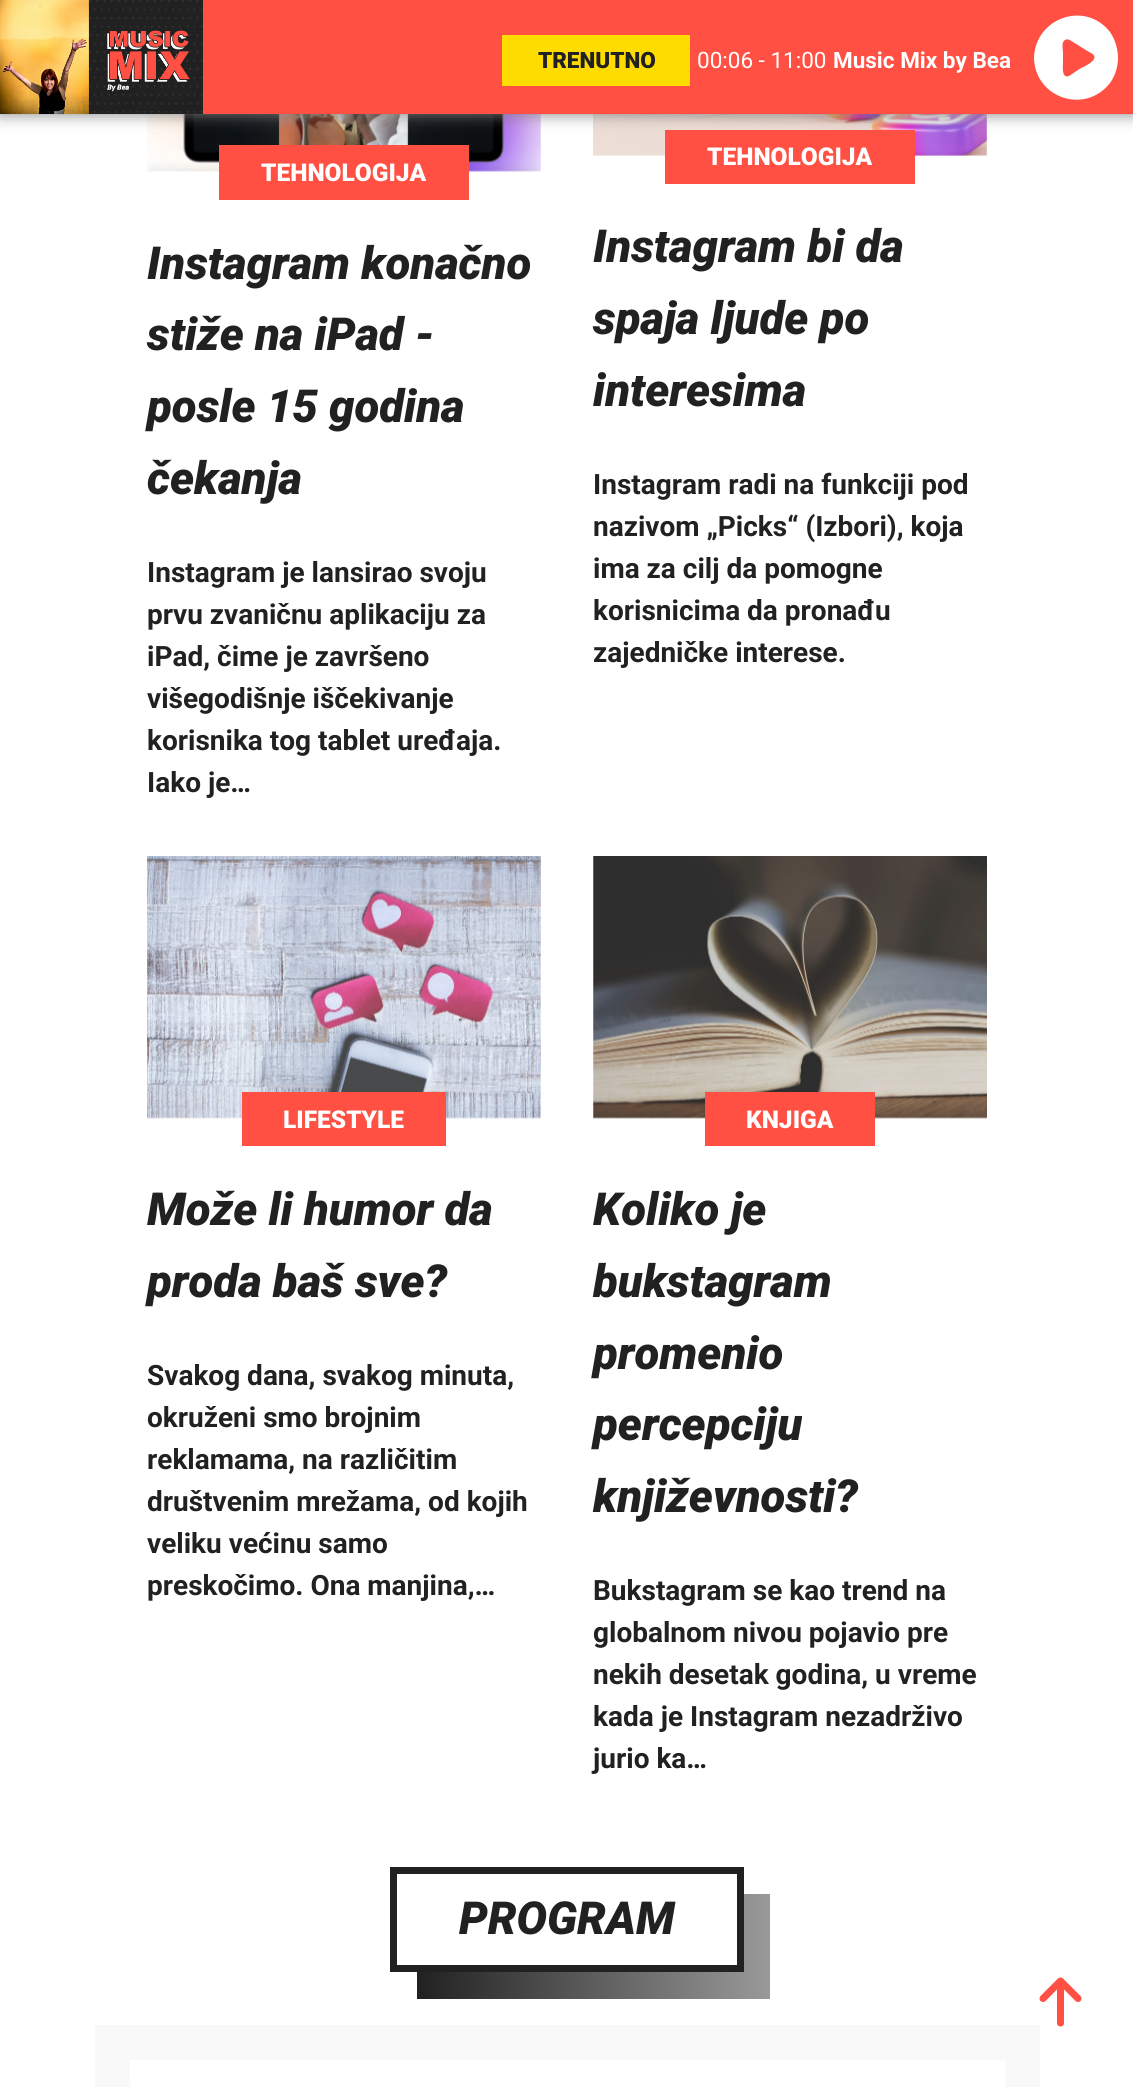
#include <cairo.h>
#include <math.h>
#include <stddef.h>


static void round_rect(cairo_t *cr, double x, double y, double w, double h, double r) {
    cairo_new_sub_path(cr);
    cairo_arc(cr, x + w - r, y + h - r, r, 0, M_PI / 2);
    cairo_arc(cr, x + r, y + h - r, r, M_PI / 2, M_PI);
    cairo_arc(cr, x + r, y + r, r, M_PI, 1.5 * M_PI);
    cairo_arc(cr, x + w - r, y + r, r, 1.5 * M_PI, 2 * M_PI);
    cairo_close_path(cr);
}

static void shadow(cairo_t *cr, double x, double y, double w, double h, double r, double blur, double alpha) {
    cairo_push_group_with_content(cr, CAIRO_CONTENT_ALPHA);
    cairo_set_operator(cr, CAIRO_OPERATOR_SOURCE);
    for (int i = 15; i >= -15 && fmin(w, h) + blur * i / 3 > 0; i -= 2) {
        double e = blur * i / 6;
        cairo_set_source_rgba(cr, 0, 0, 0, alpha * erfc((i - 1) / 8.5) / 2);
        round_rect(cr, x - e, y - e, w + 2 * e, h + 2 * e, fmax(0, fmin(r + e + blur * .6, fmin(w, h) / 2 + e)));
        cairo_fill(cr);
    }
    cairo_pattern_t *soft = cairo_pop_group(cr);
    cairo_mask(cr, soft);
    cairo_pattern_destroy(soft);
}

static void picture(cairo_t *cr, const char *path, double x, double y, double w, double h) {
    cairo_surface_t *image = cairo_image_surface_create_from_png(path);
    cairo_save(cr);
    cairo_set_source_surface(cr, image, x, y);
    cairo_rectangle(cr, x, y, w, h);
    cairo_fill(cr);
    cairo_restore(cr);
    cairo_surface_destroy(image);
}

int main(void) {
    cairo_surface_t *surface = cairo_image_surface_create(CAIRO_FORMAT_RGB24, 1133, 2087);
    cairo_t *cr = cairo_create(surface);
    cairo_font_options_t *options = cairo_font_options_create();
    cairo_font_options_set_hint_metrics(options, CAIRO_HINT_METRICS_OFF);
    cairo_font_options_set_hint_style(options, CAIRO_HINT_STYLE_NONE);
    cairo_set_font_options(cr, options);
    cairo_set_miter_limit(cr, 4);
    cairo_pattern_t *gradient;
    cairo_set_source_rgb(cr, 1, 1, 1);
    cairo_paint(cr);
    picture(cr, "img2.png", 147, 114, 394, 58);
    picture(cr, "img3.png", 593, 114, 394, 42);
    cairo_set_source_rgb(cr, 1, 0.314, 0.263);
    cairo_rectangle(cr, 665, 130, 250, 54);
    cairo_fill(cr);
    cairo_set_source_rgb(cr, 0.506, 0.506, 0.506);
    shadow(cr, 0, 0, 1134, 114, 0, 8, 1);
    cairo_set_source_rgb(cr, 1, 0.314, 0.263);
    cairo_rectangle(cr, 203, 0, 930, 114);
    cairo_fill(cr);
    picture(cr, "img1.png", 0, 0, 203, 114);
    cairo_set_source_rgb(cr, 1, 0.863, 0);
    cairo_rectangle(cr, 502, 35, 188, 51);
    cairo_fill(cr);
    cairo_select_font_face(cr, "Roboto Black", CAIRO_FONT_SLANT_NORMAL, CAIRO_FONT_WEIGHT_NORMAL);
    cairo_set_font_size(cr, 22.5);
    cairo_set_source_rgb(cr, 0.129, 0.129, 0.129);
    cairo_move_to(cr, 538, 68);
    cairo_show_text(cr, "TRENUTNO");
    cairo_select_font_face(cr, "Roboto", CAIRO_FONT_SLANT_NORMAL, CAIRO_FONT_WEIGHT_NORMAL);
    cairo_set_source_rgb(cr, 1, 1, 1);
    cairo_move_to(cr, 697, 68);
    cairo_show_text(cr, "00:06 - 11:00");
    cairo_select_font_face(cr, "Roboto", CAIRO_FONT_SLANT_NORMAL, CAIRO_FONT_WEIGHT_BOLD);
    cairo_move_to(cr, 833, 68);
    cairo_show_text(cr, "Music Mix by Bea");
    cairo_new_path(cr);
    cairo_move_to(cr, 1034, 58);
    cairo_curve_to(cr, 1035, 18, 1085, 0, 1110, 32);
    cairo_curve_to(cr, 1115, 39, 1118, 49, 1118, 58);
    cairo_curve_to(cr, 1118, 67, 1115, 76, 1110, 83);
    cairo_curve_to(cr, 1085, 115, 1035, 98, 1034, 58);
    cairo_close_path(cr);
    cairo_move_to(cr, 1065, 40);
    cairo_curve_to(cr, 1061, 42, 1063, 50, 1063, 53);
    cairo_line_to(cr, 1063, 63);
    cairo_curve_to(cr, 1063, 65, 1061, 79, 1069, 76);
    cairo_line_to(cr, 1081, 68);
    cairo_curve_to(cr, 1084, 67, 1093, 62, 1094, 59);
    cairo_curve_to(cr, 1096, 55, 1091, 53, 1089, 52);
    cairo_line_to(cr, 1073, 42);
    cairo_curve_to(cr, 1071, 41, 1068, 38, 1065, 40);
    cairo_close_path(cr);
    cairo_fill(cr);
    cairo_set_source_rgb(cr, 1, 0.314, 0.263);
    cairo_rectangle(cr, 219, 145, 250, 55);
    cairo_fill(cr);
    cairo_select_font_face(cr, "Roboto Black", CAIRO_FONT_SLANT_NORMAL, CAIRO_FONT_WEIGHT_NORMAL);
    cairo_set_font_size(cr, 24.5);
    cairo_set_source_rgb(cr, 1, 1, 1);
    cairo_move_to(cr, 261, 181);
    cairo_show_text(cr, "TEHNOLOGIJA");
    cairo_select_font_face(cr, "Roboto Black", CAIRO_FONT_SLANT_ITALIC, CAIRO_FONT_WEIGHT_NORMAL);
    cairo_set_font_size(cr, 45.5);
    cairo_set_source_rgb(cr, 0.129, 0.129, 0.129);
    cairo_move_to(cr, 147, 279);
    cairo_show_text(cr, "Instagram konačno");
    cairo_move_to(cr, 147, 350);
    cairo_show_text(cr, "stiže na iPad -");
    cairo_move_to(cr, 147, 422);
    cairo_show_text(cr, "posle 15 godina");
    cairo_move_to(cr, 147, 494);
    cairo_show_text(cr, "čekanja");
    cairo_select_font_face(cr, "Roboto", CAIRO_FONT_SLANT_NORMAL, CAIRO_FONT_WEIGHT_BOLD);
    cairo_set_font_size(cr, 28);
    cairo_move_to(cr, 147, 582);
    cairo_show_text(cr, "Instagram je lansirao svoju");
    cairo_move_to(cr, 147, 624);
    cairo_show_text(cr, "prvu zvaničnu aplikaciju za");
    cairo_move_to(cr, 147, 666);
    cairo_show_text(cr, "iPad, čime je završeno");
    cairo_move_to(cr, 147, 708);
    cairo_show_text(cr, "višegodišnje iščekivanje");
    cairo_move_to(cr, 147, 750);
    cairo_show_text(cr, "korisnika tog tablet uređaja.");
    cairo_move_to(cr, 147, 792);
    cairo_show_text(cr, "Iako je…");
    cairo_select_font_face(cr, "Roboto Black", CAIRO_FONT_SLANT_NORMAL, CAIRO_FONT_WEIGHT_NORMAL);
    cairo_set_font_size(cr, 24.5);
    cairo_set_source_rgb(cr, 1, 1, 1);
    cairo_move_to(cr, 707, 165);
    cairo_show_text(cr, "TEHNOLOGIJA");
    cairo_select_font_face(cr, "Roboto Black", CAIRO_FONT_SLANT_ITALIC, CAIRO_FONT_WEIGHT_NORMAL);
    cairo_set_font_size(cr, 45.5);
    cairo_set_source_rgb(cr, 0.129, 0.129, 0.129);
    cairo_move_to(cr, 593, 262);
    cairo_show_text(cr, "Instagram bi da");
    cairo_move_to(cr, 593, 334);
    cairo_show_text(cr, "spaja ljude po");
    cairo_move_to(cr, 593, 406);
    cairo_show_text(cr, "interesima");
    cairo_select_font_face(cr, "Roboto", CAIRO_FONT_SLANT_NORMAL, CAIRO_FONT_WEIGHT_BOLD);
    cairo_set_font_size(cr, 28);
    cairo_move_to(cr, 593, 494);
    cairo_show_text(cr, "Instagram radi na funkciji pod");
    cairo_move_to(cr, 593, 536);
    cairo_show_text(cr, "nazivom „Picks“ (Izbori), koja");
    cairo_move_to(cr, 593, 578);
    cairo_show_text(cr, "ima za cilj da pomogne");
    cairo_move_to(cr, 593, 620);
    cairo_show_text(cr, "korisnicima da pronađu");
    cairo_move_to(cr, 593, 662);
    cairo_show_text(cr, "zajedničke interese.");
    picture(cr, "img4.png", 147, 856, 394, 263);
    cairo_set_source_rgb(cr, 1, 0.314, 0.263);
    cairo_rectangle(cr, 242, 1092, 204, 54);
    cairo_fill(cr);
    cairo_select_font_face(cr, "Roboto Black", CAIRO_FONT_SLANT_NORMAL, CAIRO_FONT_WEIGHT_NORMAL);
    cairo_set_font_size(cr, 24.5);
    cairo_set_source_rgb(cr, 1, 1, 1);
    cairo_move_to(cr, 283, 1128);
    cairo_show_text(cr, "LIFESTYLE");
    cairo_select_font_face(cr, "Roboto Black", CAIRO_FONT_SLANT_ITALIC, CAIRO_FONT_WEIGHT_NORMAL);
    cairo_set_font_size(cr, 45.5);
    cairo_set_source_rgb(cr, 0.129, 0.129, 0.129);
    cairo_move_to(cr, 147, 1225);
    cairo_show_text(cr, "Može li humor da");
    cairo_move_to(cr, 147, 1297);
    cairo_show_text(cr, "proda baš sve?");
    cairo_select_font_face(cr, "Roboto", CAIRO_FONT_SLANT_NORMAL, CAIRO_FONT_WEIGHT_BOLD);
    cairo_set_font_size(cr, 28);
    cairo_move_to(cr, 147, 1385);
    cairo_show_text(cr, "Svakog dana, svakog minuta,");
    cairo_move_to(cr, 147, 1427);
    cairo_show_text(cr, "okruženi smo brojnim");
    cairo_move_to(cr, 147, 1469);
    cairo_show_text(cr, "reklamama, na različitim");
    cairo_move_to(cr, 147, 1511);
    cairo_show_text(cr, "društvenim mrežama, od kojih");
    cairo_move_to(cr, 147, 1553);
    cairo_show_text(cr, "veliku većinu samo");
    cairo_move_to(cr, 147, 1595);
    cairo_show_text(cr, "preskočimo. Ona manjina,…");
    picture(cr, "img5.png", 593, 856, 394, 263);
    cairo_set_source_rgb(cr, 1, 0.314, 0.263);
    cairo_rectangle(cr, 705, 1092, 170, 54);
    cairo_fill(cr);
    cairo_select_font_face(cr, "Roboto Black", CAIRO_FONT_SLANT_NORMAL, CAIRO_FONT_WEIGHT_NORMAL);
    cairo_set_font_size(cr, 24.5);
    cairo_set_source_rgb(cr, 1, 1, 1);
    cairo_move_to(cr, 746, 1128);
    cairo_show_text(cr, "KNJIGA");
    cairo_select_font_face(cr, "Roboto Black", CAIRO_FONT_SLANT_ITALIC, CAIRO_FONT_WEIGHT_NORMAL);
    cairo_set_font_size(cr, 45.5);
    cairo_set_source_rgb(cr, 0.129, 0.129, 0.129);
    cairo_move_to(cr, 593, 1225);
    cairo_show_text(cr, "Koliko je");
    cairo_move_to(cr, 593, 1297);
    cairo_show_text(cr, "bukstagram");
    cairo_move_to(cr, 593, 1369);
    cairo_show_text(cr, "promenio");
    cairo_move_to(cr, 593, 1440);
    cairo_show_text(cr, "percepciju");
    cairo_move_to(cr, 593, 1512);
    cairo_show_text(cr, "književnosti?");
    cairo_select_font_face(cr, "Roboto", CAIRO_FONT_SLANT_NORMAL, CAIRO_FONT_WEIGHT_BOLD);
    cairo_set_font_size(cr, 28);
    cairo_move_to(cr, 593, 1600);
    cairo_show_text(cr, "Bukstagram se kao trend na");
    cairo_move_to(cr, 593, 1642);
    cairo_show_text(cr, "globalnom nivou pojavio pre");
    cairo_move_to(cr, 593, 1684);
    cairo_show_text(cr, "nekih desetak godina, u vreme");
    cairo_move_to(cr, 593, 1726);
    cairo_show_text(cr, "kada je Instagram nezadrživo");
    cairo_move_to(cr, 593, 1768);
    cairo_show_text(cr, "jurio ka…");
    gradient = cairo_pattern_create_linear(417, 1946, 770, 1946);
    cairo_pattern_add_color_stop_rgba(gradient, 0, 0.129, 0.129, 0.129, 1);
    cairo_pattern_add_color_stop_rgba(gradient, 1, 0.6, 0.6, 0.6, 1);
    cairo_set_source(cr, gradient);
    cairo_pattern_destroy(gradient);
    cairo_rectangle(cr, 417, 1894, 353, 105);
    cairo_fill(cr);
    cairo_set_source_rgb(cr, 1, 1, 1);
    cairo_rectangle(cr, 417, 1894, 320, 71);
    cairo_fill(cr);
    cairo_rectangle(cr, 393.5, 1870.5, 347, 98);
    cairo_set_source_rgb(cr, 0.129, 0.129, 0.129);
    cairo_set_line_width(cr, 7);
    cairo_stroke(cr);
    cairo_select_font_face(cr, "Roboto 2 Black", CAIRO_FONT_SLANT_ITALIC, CAIRO_FONT_WEIGHT_NORMAL);
    cairo_set_font_size(cr, 45.5);
    cairo_move_to(cr, 459, 1934);
    cairo_show_text(cr, "PROGRAM");
    cairo_set_source_rgb(cr, 0.973, 0.973, 0.973);
    cairo_rectangle(cr, 95, 2025, 945, 62);
    cairo_fill(cr);
    cairo_set_source_rgb(cr, 1, 1, 1);
    cairo_rectangle(cr, 130, 2060, 875, 27);
    cairo_fill(cr);
    picture(cr, "img6.png", 1039, 1977, 43, 50);
    cairo_surface_write_to_png(surface, "page.png");
    cairo_font_options_destroy(options);
    cairo_destroy(cr);
    cairo_surface_destroy(surface);
    return 0;
}
